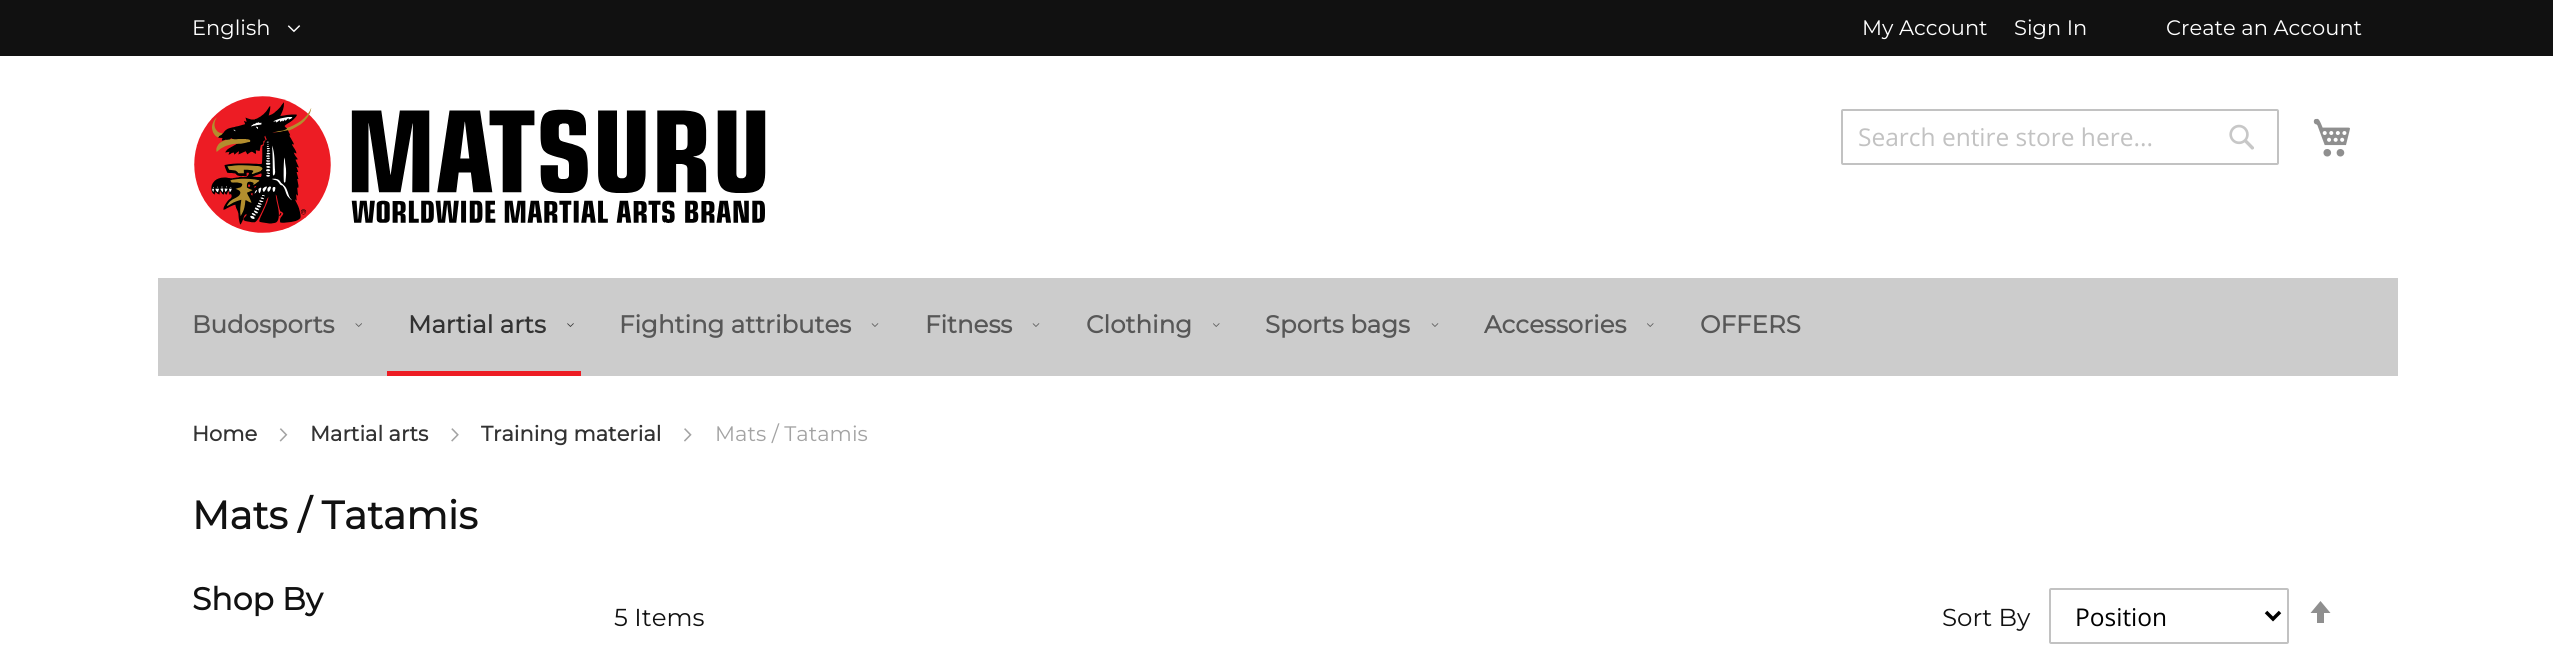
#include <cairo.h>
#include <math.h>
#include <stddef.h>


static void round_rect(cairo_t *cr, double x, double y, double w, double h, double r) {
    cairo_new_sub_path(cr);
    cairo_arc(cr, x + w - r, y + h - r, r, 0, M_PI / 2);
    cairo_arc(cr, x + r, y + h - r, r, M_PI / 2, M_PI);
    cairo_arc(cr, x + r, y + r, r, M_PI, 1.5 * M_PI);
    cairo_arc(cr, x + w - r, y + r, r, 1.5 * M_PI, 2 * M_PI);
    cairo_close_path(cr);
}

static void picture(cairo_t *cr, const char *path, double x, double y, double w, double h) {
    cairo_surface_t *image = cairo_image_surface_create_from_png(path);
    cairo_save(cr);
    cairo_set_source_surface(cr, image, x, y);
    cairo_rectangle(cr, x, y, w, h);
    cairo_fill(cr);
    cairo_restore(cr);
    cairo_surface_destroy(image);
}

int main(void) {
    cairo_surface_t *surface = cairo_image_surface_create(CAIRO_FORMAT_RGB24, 2553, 671);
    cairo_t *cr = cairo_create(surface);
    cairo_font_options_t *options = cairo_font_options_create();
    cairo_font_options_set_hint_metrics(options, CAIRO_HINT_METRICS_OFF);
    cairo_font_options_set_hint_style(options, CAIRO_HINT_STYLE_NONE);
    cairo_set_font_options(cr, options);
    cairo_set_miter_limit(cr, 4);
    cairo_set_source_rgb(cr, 1, 1, 1);
    cairo_paint(cr);
    cairo_set_source_rgb(cr, 0.067, 0.067, 0.067);
    cairo_rectangle(cr, 0, 0, 2553, 56);
    cairo_fill(cr);
    cairo_select_font_face(cr, "Montserrat Thin", CAIRO_FONT_SLANT_NORMAL, CAIRO_FONT_WEIGHT_NORMAL);
    cairo_set_font_size(cr, 21);
    cairo_set_source_rgb(cr, 1, 1, 1);
    cairo_move_to(cr, 192, 35);
    cairo_show_text(cr, "English");
    picture(cr, "img1.png", 287, 25, 14, 8);
    cairo_move_to(cr, 1862, 35);
    cairo_show_text(cr, "My Account");
    cairo_move_to(cr, 2014, 35);
    cairo_show_text(cr, "Sign In");
    cairo_move_to(cr, 2166, 35);
    cairo_show_text(cr, "Create an Account");
    picture(cr, "img2.png", 194, 96, 572, 137);
    round_rect(cr, 1842, 110, 436, 54, 1);
    cairo_set_source_rgb(cr, 0.761, 0.761, 0.761);
    cairo_stroke(cr);
    cairo_select_font_face(cr, "Open Sans", CAIRO_FONT_SLANT_NORMAL, CAIRO_FONT_WEIGHT_NORMAL);
    cairo_set_font_size(cr, 24.5);
    cairo_move_to(cr, 1858, 146);
    cairo_show_text(cr, "Search entire store here...");
    picture(cr, "img3.png", 2229, 124, 25, 26);
    picture(cr, "img4.png", 2313, 118, 37, 39);
    cairo_set_source_rgb(cr, 0.8, 0.8, 0.8);
    cairo_rectangle(cr, 158, 278, 2240, 98);
    cairo_fill(cr);
    cairo_select_font_face(cr, "Montserrat", CAIRO_FONT_SLANT_NORMAL, CAIRO_FONT_WEIGHT_BOLD);
    cairo_set_source_rgb(cr, 0.341, 0.341, 0.341);
    cairo_move_to(cr, 192, 333);
    cairo_show_text(cr, "Budosports");
    picture(cr, "img5.png", 355, 323, 7, 4);
    cairo_set_source_rgb(cr, 0.929, 0.11, 0.141);
    cairo_rectangle(cr, 387, 371, 194, 5);
    cairo_fill(cr);
    cairo_set_source_rgb(cr, 0.2, 0.2, 0.2);
    cairo_move_to(cr, 408, 333);
    cairo_show_text(cr, "Martial arts");
    picture(cr, "img6.png", 567, 323, 7, 4);
    cairo_set_source_rgb(cr, 0.341, 0.341, 0.341);
    cairo_move_to(cr, 619, 333);
    cairo_show_text(cr, "Fighting attributes");
    picture(cr, "img7.png", 871, 323, 8, 4);
    cairo_move_to(cr, 925, 333);
    cairo_show_text(cr, "Fitness");
    picture(cr, "img7.png", 1032, 323, 8, 4);
    cairo_move_to(cr, 1086, 333);
    cairo_show_text(cr, "Clothing");
    picture(cr, "img8.png", 1213, 323, 7, 4);
    cairo_move_to(cr, 1265, 333);
    cairo_show_text(cr, "Sports bags");
    picture(cr, "img7.png", 1431, 323, 8, 4);
    cairo_move_to(cr, 1484, 333);
    cairo_show_text(cr, "Accessories");
    picture(cr, "img8.png", 1647, 323, 7, 4);
    cairo_move_to(cr, 1700, 333);
    cairo_show_text(cr, "OFFERS");
    cairo_set_font_size(cr, 21);
    cairo_set_source_rgb(cr, 0.2, 0.2, 0.2);
    cairo_move_to(cr, 192, 441);
    cairo_show_text(cr, "Home");
    picture(cr, "img9.png", 279, 428, 9, 14);
    cairo_move_to(cr, 310, 441);
    cairo_show_text(cr, "Martial arts");
    picture(cr, "img10.png", 451, 428, 8, 14);
    cairo_move_to(cr, 481, 441);
    cairo_show_text(cr, "Training material");
    picture(cr, "img11.png", 684, 428, 8, 14);
    cairo_select_font_face(cr, "Montserrat Thin", CAIRO_FONT_SLANT_NORMAL, CAIRO_FONT_WEIGHT_NORMAL);
    cairo_set_source_rgb(cr, 0.639, 0.639, 0.639);
    cairo_move_to(cr, 715, 441);
    cairo_show_text(cr, "Mats / Tatamis");
    cairo_select_font_face(cr, "Montserrat", CAIRO_FONT_SLANT_NORMAL, CAIRO_FONT_WEIGHT_BOLD);
    cairo_set_font_size(cr, 39.25);
    cairo_set_source_rgb(cr, 0.067, 0.067, 0.067);
    cairo_move_to(cr, 192, 529);
    cairo_show_text(cr, "Mats / Tatamis");
    cairo_set_font_size(cr, 31.5);
    cairo_move_to(cr, 192, 610);
    cairo_show_text(cr, "Shop By");
    cairo_select_font_face(cr, "Montserrat Thin", CAIRO_FONT_SLANT_NORMAL, CAIRO_FONT_WEIGHT_NORMAL);
    cairo_set_font_size(cr, 24.5);
    cairo_move_to(cr, 614, 626);
    cairo_show_text(cr, "5 Items");
    cairo_move_to(cr, 1942, 626);
    cairo_show_text(cr, "Sort By");
    round_rect(cr, 2050, 589, 238, 54, 1);
    cairo_set_source_rgb(cr, 0.761, 0.761, 0.761);
    cairo_stroke(cr);
    cairo_new_path(cr);
    cairo_move_to(cr, 2266, 612);
    cairo_line_to(cr, 2273, 619);
    cairo_line_to(cr, 2280, 612);
    cairo_set_source_rgb(cr, 0, 0, 0);
    cairo_set_line_width(cr, 3.5);
    cairo_stroke(cr);
    cairo_select_font_face(cr, "Open Sans", CAIRO_FONT_SLANT_NORMAL, CAIRO_FONT_WEIGHT_NORMAL);
    cairo_move_to(cr, 2075, 626);
    cairo_show_text(cr, "Position");
    cairo_set_source_rgb(cr, 0.561, 0.561, 0.561);
    cairo_new_path(cr);
    cairo_move_to(cr, 2320.5, 601);
    cairo_line_to(cr, 2310.5, 613);
    cairo_line_to(cr, 2317, 613);
    cairo_line_to(cr, 2317, 623);
    cairo_line_to(cr, 2324, 623);
    cairo_line_to(cr, 2324, 613);
    cairo_line_to(cr, 2330.5, 613);
    cairo_close_path(cr);
    cairo_fill(cr);
    cairo_surface_write_to_png(surface, "page.png");
    cairo_font_options_destroy(options);
    cairo_destroy(cr);
    cairo_surface_destroy(surface);
    return 0;
}
